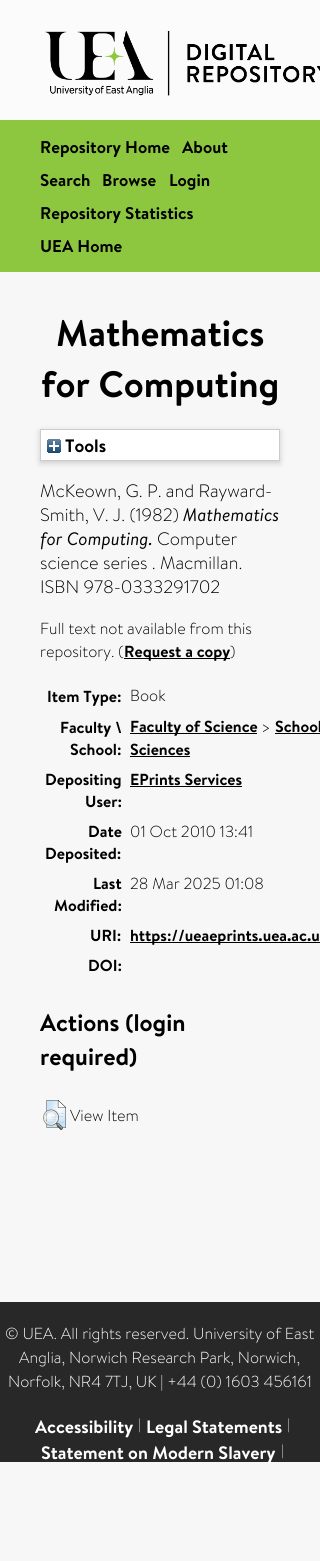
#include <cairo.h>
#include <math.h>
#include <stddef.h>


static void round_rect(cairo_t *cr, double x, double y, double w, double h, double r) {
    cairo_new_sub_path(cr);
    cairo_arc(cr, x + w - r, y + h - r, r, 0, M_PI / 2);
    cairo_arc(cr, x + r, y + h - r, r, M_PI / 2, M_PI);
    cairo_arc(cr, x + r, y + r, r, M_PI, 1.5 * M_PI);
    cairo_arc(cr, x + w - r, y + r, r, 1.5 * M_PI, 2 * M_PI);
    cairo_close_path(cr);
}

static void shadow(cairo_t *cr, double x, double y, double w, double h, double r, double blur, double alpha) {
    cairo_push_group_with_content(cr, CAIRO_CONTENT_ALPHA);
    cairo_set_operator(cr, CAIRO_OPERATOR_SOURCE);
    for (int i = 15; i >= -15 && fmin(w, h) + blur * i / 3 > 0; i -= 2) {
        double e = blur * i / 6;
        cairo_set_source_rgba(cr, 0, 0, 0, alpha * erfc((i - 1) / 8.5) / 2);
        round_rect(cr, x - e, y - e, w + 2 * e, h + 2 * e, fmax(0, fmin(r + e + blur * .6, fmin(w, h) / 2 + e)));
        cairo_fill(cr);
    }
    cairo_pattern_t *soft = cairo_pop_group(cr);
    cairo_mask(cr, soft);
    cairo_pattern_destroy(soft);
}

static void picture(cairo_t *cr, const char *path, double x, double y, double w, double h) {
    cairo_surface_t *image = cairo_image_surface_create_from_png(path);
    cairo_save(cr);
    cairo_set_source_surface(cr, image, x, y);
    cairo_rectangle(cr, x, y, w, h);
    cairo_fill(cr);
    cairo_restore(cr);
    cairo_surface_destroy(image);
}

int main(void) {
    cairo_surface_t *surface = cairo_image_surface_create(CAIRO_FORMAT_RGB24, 320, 1561);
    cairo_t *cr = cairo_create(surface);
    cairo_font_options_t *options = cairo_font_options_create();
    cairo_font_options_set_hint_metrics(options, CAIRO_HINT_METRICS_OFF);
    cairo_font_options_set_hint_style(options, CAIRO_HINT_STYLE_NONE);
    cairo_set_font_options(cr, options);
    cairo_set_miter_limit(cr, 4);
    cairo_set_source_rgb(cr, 0.965, 0.965, 0.965);
    cairo_paint(cr);
    cairo_set_source_rgb(cr, 0.984, 0.984, 0.984);
    cairo_rectangle(cr, 0, 0, 320, 120);
    cairo_fill(cr);
    picture(cr, "img1.png", 45, 30, 275, 66);
    cairo_set_source_rgb(cr, 0.553, 0.776, 0.247);
    cairo_rectangle(cr, 0, 120, 320, 152);
    cairo_fill(cr);
    cairo_select_font_face(cr, "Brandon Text", CAIRO_FONT_SLANT_NORMAL, CAIRO_FONT_WEIGHT_BOLD);
    cairo_set_font_size(cr, 17);
    cairo_set_source_rgb(cr, 0, 0, 0);
    cairo_move_to(cr, 40, 153);
    cairo_show_text(cr, "Repository Home");
    cairo_move_to(cr, 182, 153);
    cairo_show_text(cr, "About");
    cairo_move_to(cr, 40, 186);
    cairo_show_text(cr, "Search");
    cairo_move_to(cr, 102, 186);
    cairo_show_text(cr, "Browse");
    cairo_move_to(cr, 169, 186);
    cairo_show_text(cr, "Login");
    cairo_move_to(cr, 40, 219);
    cairo_show_text(cr, "Repository Statistics");
    cairo_move_to(cr, 40, 252);
    cairo_show_text(cr, "UEA Home");
    cairo_set_font_size(cr, 36.75);
    cairo_move_to(cr, 56, 346);
    cairo_show_text(cr, "Mathematics");
    cairo_move_to(cr, 41, 397);
    cairo_show_text(cr, "for Computing");
    cairo_set_source_rgb(cr, 0.392, 0.392, 0.392);
    shadow(cr, 40, 431, 240, 32, 0, 3, 0.3);
    cairo_set_source_rgb(cr, 1, 1, 1);
    cairo_rectangle(cr, 40.5, 429.5, 239, 31);
    cairo_fill_preserve(cr);
    cairo_set_source_rgb(cr, 0.8, 0.8, 0.8);
    cairo_set_line_width(cr, 1);
    cairo_stroke(cr);
    picture(cr, "img2.png", 47, 439, 14, 14);
    cairo_set_font_size(cr, 18);
    cairo_set_source_rgb(cr, 0, 0, 0);
    cairo_move_to(cr, 65, 452);
    cairo_show_text(cr, "Tools");
    cairo_select_font_face(cr, "Brandon Text Light", CAIRO_FONT_SLANT_NORMAL, CAIRO_FONT_WEIGHT_NORMAL);
    cairo_move_to(cr, 40, 497);
    cairo_show_text(cr, "McKeown, G. P. and Rayward-");
    cairo_move_to(cr, 40, 521);
    cairo_show_text(cr, "Smith, V. J. (1982)");
    cairo_select_font_face(cr, "Brandon Text", CAIRO_FONT_SLANT_ITALIC, CAIRO_FONT_WEIGHT_NORMAL);
    cairo_move_to(cr, 183, 521);
    cairo_show_text(cr, "Mathematics");
    cairo_move_to(cr, 40, 545);
    cairo_show_text(cr, "for Computing.");
    cairo_select_font_face(cr, "Brandon Text Light", CAIRO_FONT_SLANT_NORMAL, CAIRO_FONT_WEIGHT_NORMAL);
    cairo_move_to(cr, 157, 545);
    cairo_show_text(cr, "Computer");
    cairo_move_to(cr, 40, 569);
    cairo_show_text(cr, "science series . Macmillan.");
    cairo_move_to(cr, 40, 593);
    cairo_show_text(cr, "ISBN 978-0333291702");
    cairo_set_font_size(cr, 16);
    cairo_move_to(cr, 40, 634);
    cairo_show_text(cr, "Full text not available from this");
    cairo_move_to(cr, 40, 657);
    cairo_show_text(cr, "repository. (");
    cairo_rectangle(cr, 124, 658, 106, 1);
    cairo_fill(cr);
    cairo_select_font_face(cr, "Brandon Text", CAIRO_FONT_SLANT_NORMAL, CAIRO_FONT_WEIGHT_BOLD);
    cairo_move_to(cr, 124, 657);
    cairo_show_text(cr, "Request a copy");
    cairo_select_font_face(cr, "Brandon Text Light", CAIRO_FONT_SLANT_NORMAL, CAIRO_FONT_WEIGHT_NORMAL);
    cairo_move_to(cr, 230, 657);
    cairo_show_text(cr, ")");
    cairo_select_font_face(cr, "Brandon Text", CAIRO_FONT_SLANT_NORMAL, CAIRO_FONT_WEIGHT_BOLD);
    cairo_move_to(cr, 47, 702);
    cairo_show_text(cr, "Item Type:");
    cairo_select_font_face(cr, "Brandon Text Light", CAIRO_FONT_SLANT_NORMAL, CAIRO_FONT_WEIGHT_NORMAL);
    cairo_move_to(cr, 130, 701);
    cairo_show_text(cr, "Book");
    cairo_select_font_face(cr, "Brandon Text", CAIRO_FONT_SLANT_NORMAL, CAIRO_FONT_WEIGHT_BOLD);
    cairo_move_to(cr, 60, 733);
    cairo_show_text(cr, "Faculty \\");
    cairo_move_to(cr, 70, 755);
    cairo_show_text(cr, "School:");
    cairo_rectangle(cr, 130, 733, 127, 1);
    cairo_fill(cr);
    cairo_move_to(cr, 130, 732);
    cairo_show_text(cr, "Faculty of Science");
    cairo_select_font_face(cr, "Brandon Text Light", CAIRO_FONT_SLANT_NORMAL, CAIRO_FONT_WEIGHT_NORMAL);
    cairo_move_to(cr, 261, 732);
    cairo_show_text(cr, ">");
    cairo_select_font_face(cr, "Brandon Text", CAIRO_FONT_SLANT_NORMAL, CAIRO_FONT_WEIGHT_BOLD);
    cairo_move_to(cr, 275, 732);
    cairo_show_text(cr, "School");
    cairo_rectangle(cr, 275, 733, 45, 1);
    cairo_fill(cr);
    cairo_move_to(cr, 130, 755);
    cairo_show_text(cr, "Sciences");
    cairo_rectangle(cr, 130, 756, 60, 1);
    cairo_fill(cr);
    cairo_move_to(cr, 45, 785);
    cairo_show_text(cr, "Depositing");
    cairo_move_to(cr, 85, 807);
    cairo_show_text(cr, "User:");
    cairo_move_to(cr, 130, 785);
    cairo_show_text(cr, "EPrints Services");
    cairo_rectangle(cr, 130, 786, 112, 1);
    cairo_fill(cr);
    cairo_move_to(cr, 88, 837);
    cairo_show_text(cr, "Date");
    cairo_move_to(cr, 45, 859);
    cairo_show_text(cr, "Deposited:");
    cairo_select_font_face(cr, "Brandon Text Light", CAIRO_FONT_SLANT_NORMAL, CAIRO_FONT_WEIGHT_NORMAL);
    cairo_move_to(cr, 130, 837);
    cairo_show_text(cr, "01 Oct 2010 13:41");
    cairo_select_font_face(cr, "Brandon Text", CAIRO_FONT_SLANT_NORMAL, CAIRO_FONT_WEIGHT_BOLD);
    cairo_move_to(cr, 93, 889);
    cairo_show_text(cr, "Last");
    cairo_move_to(cr, 54, 911);
    cairo_show_text(cr, "Modified:");
    cairo_select_font_face(cr, "Brandon Text Light", CAIRO_FONT_SLANT_NORMAL, CAIRO_FONT_WEIGHT_NORMAL);
    cairo_move_to(cr, 130, 889);
    cairo_show_text(cr, "28 Mar 2025 01:08");
    cairo_select_font_face(cr, "Brandon Text", CAIRO_FONT_SLANT_NORMAL, CAIRO_FONT_WEIGHT_BOLD);
    cairo_move_to(cr, 90, 941);
    cairo_show_text(cr, "URI:");
    cairo_rectangle(cr, 130, 942, 190, 1);
    cairo_fill(cr);
    cairo_move_to(cr, 130, 941);
    cairo_show_text(cr, "https://ueaeprints.uea.ac.u");
    cairo_move_to(cr, 88, 971);
    cairo_show_text(cr, "DOI:");
    cairo_set_font_size(cr, 24);
    cairo_move_to(cr, 40, 1031);
    cairo_show_text(cr, "Actions (login");
    cairo_move_to(cr, 40, 1065);
    cairo_show_text(cr, "required)");
    picture(cr, "img3.png", 43, 1100, 23, 30);
    cairo_select_font_face(cr, "Brandon Text Light", CAIRO_FONT_SLANT_NORMAL, CAIRO_FONT_WEIGHT_NORMAL);
    cairo_set_font_size(cr, 16);
    cairo_move_to(cr, 70, 1121);
    cairo_show_text(cr, "View Item");
    cairo_set_source_rgb(cr, 0.157, 0.157, 0.157);
    cairo_rectangle(cr, 0, 1302, 320, 160);
    cairo_fill(cr);
    cairo_set_source_rgb(cr, 1, 1, 1);
    cairo_move_to(cr, 5, 1339);
    cairo_show_text(cr, "© UEA. All rights reserved. University of East");
    cairo_move_to(cr, 19, 1363);
    cairo_show_text(cr, "Anglia, Norwich Research Park, Norwich,");
    cairo_move_to(cr, 8, 1387);
    cairo_show_text(cr, "Norfolk, NR4 7TJ, UK | +44 (0) 1603 456161");
    cairo_select_font_face(cr, "Brandon Text", CAIRO_FONT_SLANT_NORMAL, CAIRO_FONT_WEIGHT_BOLD);
    cairo_set_font_size(cr, 18);
    cairo_move_to(cr, 35, 1433);
    cairo_show_text(cr, "Accessibility");
    cairo_select_font_face(cr, "Brandon Text Light", CAIRO_FONT_SLANT_NORMAL, CAIRO_FONT_WEIGHT_NORMAL);
    cairo_set_font_size(cr, 14);
    cairo_move_to(cr, 138, 1429);
    cairo_show_text(cr, "|");
    cairo_select_font_face(cr, "Brandon Text", CAIRO_FONT_SLANT_NORMAL, CAIRO_FONT_WEIGHT_BOLD);
    cairo_set_font_size(cr, 18);
    cairo_move_to(cr, 146, 1433);
    cairo_show_text(cr, "Legal Statements");
    cairo_select_font_face(cr, "Brandon Text Light", CAIRO_FONT_SLANT_NORMAL, CAIRO_FONT_WEIGHT_NORMAL);
    cairo_set_font_size(cr, 14);
    cairo_move_to(cr, 287, 1429);
    cairo_show_text(cr, "|");
    cairo_select_font_face(cr, "Brandon Text", CAIRO_FONT_SLANT_NORMAL, CAIRO_FONT_WEIGHT_BOLD);
    cairo_set_font_size(cr, 18);
    cairo_move_to(cr, 41, 1459);
    cairo_show_text(cr, "Statement on Modern Slavery");
    cairo_select_font_face(cr, "Brandon Text Light", CAIRO_FONT_SLANT_NORMAL, CAIRO_FONT_WEIGHT_NORMAL);
    cairo_set_font_size(cr, 14);
    cairo_move_to(cr, 281, 1455);
    cairo_show_text(cr, "|");
    cairo_surface_write_to_png(surface, "page.png");
    cairo_font_options_destroy(options);
    cairo_destroy(cr);
    cairo_surface_destroy(surface);
    return 0;
}
